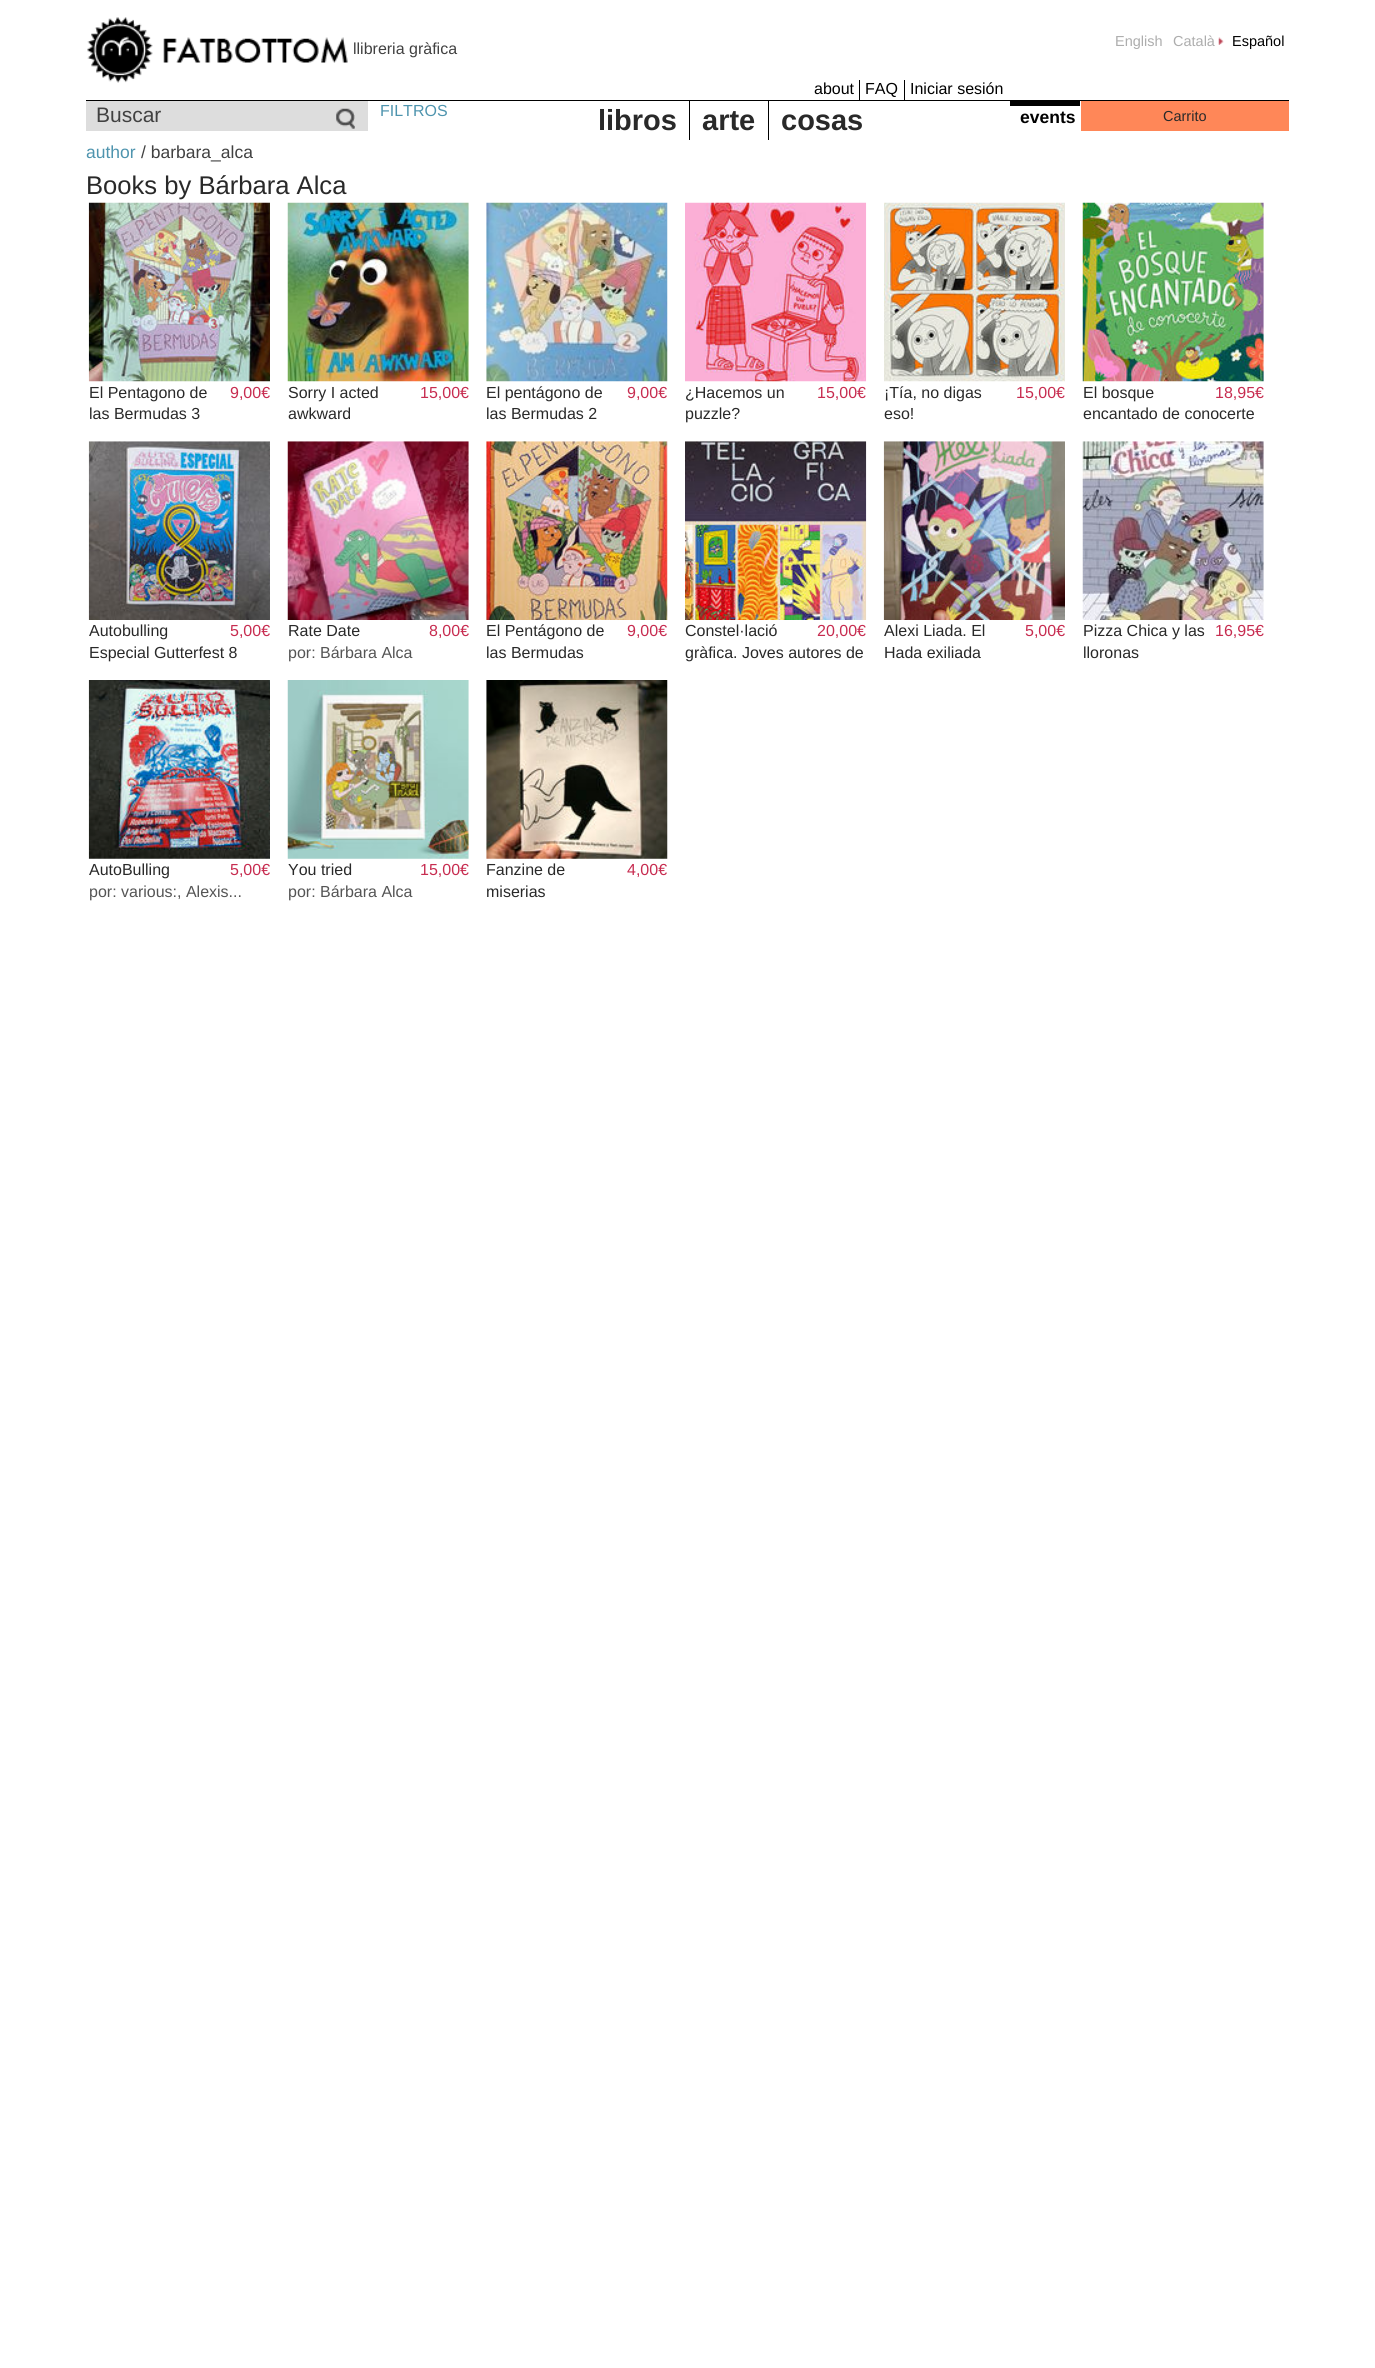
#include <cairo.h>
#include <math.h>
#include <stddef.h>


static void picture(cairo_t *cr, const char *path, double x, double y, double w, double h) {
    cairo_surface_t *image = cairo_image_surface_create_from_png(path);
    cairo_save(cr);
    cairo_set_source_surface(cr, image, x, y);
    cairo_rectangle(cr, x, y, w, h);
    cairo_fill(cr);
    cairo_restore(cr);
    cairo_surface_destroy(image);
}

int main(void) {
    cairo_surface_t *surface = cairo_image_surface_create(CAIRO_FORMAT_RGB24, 1375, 2368);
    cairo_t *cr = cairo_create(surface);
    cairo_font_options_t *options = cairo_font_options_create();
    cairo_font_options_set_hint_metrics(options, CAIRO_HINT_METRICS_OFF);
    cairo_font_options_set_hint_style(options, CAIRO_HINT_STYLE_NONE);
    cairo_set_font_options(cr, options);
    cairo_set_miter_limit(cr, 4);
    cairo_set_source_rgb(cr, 1, 1, 1);
    cairo_paint(cr);
    cairo_set_source_rgb(cr, 0, 0, 0);
    cairo_rectangle(cr, 86, 100, 1203, 1);
    cairo_fill(cr);
    picture(cr, "img1.png", 87, 17, 261, 66);
    cairo_select_font_face(cr, "Liberation Sans", CAIRO_FONT_SLANT_NORMAL, CAIRO_FONT_WEIGHT_NORMAL);
    cairo_set_font_size(cr, 16);
    cairo_set_source_rgb(cr, 0.255, 0.255, 0.255);
    cairo_move_to(cr, 353, 54);
    cairo_show_text(cr, "llibreria gràfica");
    cairo_set_font_size(cr, 14.5);
    cairo_set_source_rgb(cr, 0.678, 0.678, 0.678);
    cairo_move_to(cr, 1115, 46);
    cairo_show_text(cr, "English");
    cairo_move_to(cr, 1173, 46);
    cairo_show_text(cr, "Català");
    picture(cr, "img2.png", 1218, 37, 6, 8);
    cairo_set_source_rgb(cr, 0, 0, 0);
    cairo_move_to(cr, 1232, 46);
    cairo_show_text(cr, "Español");
    cairo_rectangle(cr, 859, 80, 1, 21);
    cairo_fill(cr);
    cairo_set_font_size(cr, 16);
    cairo_move_to(cr, 814, 94);
    cairo_show_text(cr, "about");
    cairo_rectangle(cr, 904, 80, 1, 21);
    cairo_fill(cr);
    cairo_move_to(cr, 865, 94);
    cairo_show_text(cr, "FAQ");
    cairo_move_to(cr, 910, 94);
    cairo_show_text(cr, "Iniciar sesión");
    cairo_set_source_rgb(cr, 0.867, 0.867, 0.867);
    cairo_rectangle(cr, 86, 101, 282, 30);
    cairo_fill(cr);
    cairo_set_font_size(cr, 21);
    cairo_set_source_rgb(cr, 0.255, 0.255, 0.255);
    cairo_move_to(cr, 96, 122);
    cairo_show_text(cr, "Buscar");
    picture(cr, "img3.png", 336, 108, 19, 21);
    cairo_set_font_size(cr, 16);
    cairo_set_source_rgb(cr, 0.306, 0.58, 0.682);
    cairo_move_to(cr, 380, 116);
    cairo_show_text(cr, "FILTROS");
    cairo_set_source_rgb(cr, 0, 0, 0);
    cairo_rectangle(cr, 689, 101, 1, 39);
    cairo_fill(cr);
    cairo_select_font_face(cr, "Liberation Sans", CAIRO_FONT_SLANT_NORMAL, CAIRO_FONT_WEIGHT_BOLD);
    cairo_set_font_size(cr, 29);
    cairo_set_source_rgb(cr, 0.161, 0.161, 0.161);
    cairo_move_to(cr, 598, 130);
    cairo_show_text(cr, "libros");
    cairo_set_source_rgb(cr, 0, 0, 0);
    cairo_rectangle(cr, 768, 101, 1, 39);
    cairo_fill(cr);
    cairo_set_source_rgb(cr, 0.161, 0.161, 0.161);
    cairo_move_to(cr, 702, 130);
    cairo_show_text(cr, "arte");
    cairo_move_to(cr, 781, 130);
    cairo_show_text(cr, "cosas");
    cairo_set_source_rgb(cr, 0, 0, 0);
    cairo_rectangle(cr, 1010, 101, 70, 5);
    cairo_fill(cr);
    cairo_set_font_size(cr, 17.5);
    cairo_move_to(cr, 1020, 123);
    cairo_show_text(cr, "events");
    cairo_set_source_rgb(cr, 1, 0.529, 0.345);
    cairo_rectangle(cr, 1081, 101, 208, 30);
    cairo_fill(cr);
    cairo_select_font_face(cr, "Liberation Sans", CAIRO_FONT_SLANT_NORMAL, CAIRO_FONT_WEIGHT_NORMAL);
    cairo_set_font_size(cr, 14.5);
    cairo_set_source_rgb(cr, 0.161, 0.161, 0.161);
    cairo_move_to(cr, 1163, 121);
    cairo_show_text(cr, "Carrito");
    cairo_set_font_size(cr, 17.5);
    cairo_set_source_rgb(cr, 0.306, 0.58, 0.682);
    cairo_move_to(cr, 86, 158);
    cairo_show_text(cr, "author");
    cairo_set_source_rgb(cr, 0.255, 0.255, 0.255);
    cairo_move_to(cr, 141, 158);
    cairo_show_text(cr, "/ barbara_alca");
    cairo_set_font_size(cr, 25.6);
    cairo_set_source_rgb(cr, 0.161, 0.161, 0.161);
    cairo_move_to(cr, 86, 194);
    cairo_show_text(cr, "Books by Bárbara Alca");
    picture(cr, "img4.png", 88, 202, 182, 180);
    cairo_set_font_size(cr, 16);
    cairo_move_to(cr, 89, 398);
    cairo_show_text(cr, "El Pentagono de");
    cairo_move_to(cr, 89, 419);
    cairo_show_text(cr, "las Bermudas 3");
    cairo_set_source_rgb(cr, 0.78, 0.173, 0.314);
    cairo_move_to(cr, 230, 398);
    cairo_show_text(cr, "9,00€");
    picture(cr, "img5.png", 287, 202, 182, 180);
    cairo_set_source_rgb(cr, 0.161, 0.161, 0.161);
    cairo_move_to(cr, 288, 398);
    cairo_show_text(cr, "Sorry I acted");
    cairo_move_to(cr, 288, 419);
    cairo_show_text(cr, "awkward");
    cairo_set_source_rgb(cr, 0.78, 0.173, 0.314);
    cairo_move_to(cr, 420, 398);
    cairo_show_text(cr, "15,00€");
    picture(cr, "img6.png", 486, 202, 182, 180);
    cairo_set_source_rgb(cr, 0.161, 0.161, 0.161);
    cairo_move_to(cr, 486, 398);
    cairo_show_text(cr, "El pentágono de");
    cairo_move_to(cr, 486, 419);
    cairo_show_text(cr, "las Bermudas 2");
    cairo_set_source_rgb(cr, 0.78, 0.173, 0.314);
    cairo_move_to(cr, 627, 398);
    cairo_show_text(cr, "9,00€");
    picture(cr, "img7.png", 685, 202, 182, 180);
    cairo_set_source_rgb(cr, 0.161, 0.161, 0.161);
    cairo_move_to(cr, 685, 398);
    cairo_show_text(cr, "¿Hacemos un");
    cairo_move_to(cr, 685, 419);
    cairo_show_text(cr, "puzzle?");
    cairo_set_source_rgb(cr, 0.78, 0.173, 0.314);
    cairo_move_to(cr, 817, 398);
    cairo_show_text(cr, "15,00€");
    picture(cr, "img8.png", 884, 202, 181, 180);
    cairo_set_source_rgb(cr, 0.161, 0.161, 0.161);
    cairo_move_to(cr, 884, 398);
    cairo_show_text(cr, "¡Tía, no digas");
    cairo_move_to(cr, 884, 419);
    cairo_show_text(cr, "eso!");
    cairo_set_source_rgb(cr, 0.78, 0.173, 0.314);
    cairo_move_to(cr, 1016, 398);
    cairo_show_text(cr, "15,00€");
    picture(cr, "img9.png", 1082, 202, 182, 180);
    cairo_set_source_rgb(cr, 0.161, 0.161, 0.161);
    cairo_move_to(cr, 1083, 398);
    cairo_show_text(cr, "El bosque");
    cairo_move_to(cr, 1083, 419);
    cairo_show_text(cr, "encantado de conocerte");
    cairo_set_source_rgb(cr, 0.78, 0.173, 0.314);
    cairo_move_to(cr, 1215, 398);
    cairo_show_text(cr, "18,95€");
    picture(cr, "img10.png", 88, 441, 182, 179);
    cairo_set_source_rgb(cr, 0.161, 0.161, 0.161);
    cairo_move_to(cr, 89, 636);
    cairo_show_text(cr, "Autobulling");
    cairo_move_to(cr, 89, 658);
    cairo_show_text(cr, "Especial Gutterfest 8");
    cairo_set_source_rgb(cr, 0.78, 0.173, 0.314);
    cairo_move_to(cr, 230, 636);
    cairo_show_text(cr, "5,00€");
    picture(cr, "img11.png", 287, 441, 182, 179);
    cairo_set_source_rgb(cr, 0.161, 0.161, 0.161);
    cairo_move_to(cr, 288, 636);
    cairo_show_text(cr, "Rate Date");
    cairo_set_source_rgb(cr, 0.78, 0.173, 0.314);
    cairo_move_to(cr, 429, 636);
    cairo_show_text(cr, "8,00€");
    cairo_set_source_rgb(cr, 0.333, 0.333, 0.333);
    cairo_move_to(cr, 288, 658);
    cairo_show_text(cr, "por: Bárbara Alca");
    picture(cr, "img12.png", 486, 441, 182, 179);
    cairo_set_source_rgb(cr, 0.161, 0.161, 0.161);
    cairo_move_to(cr, 486, 636);
    cairo_show_text(cr, "El Pentágono de");
    cairo_move_to(cr, 486, 658);
    cairo_show_text(cr, "las Bermudas");
    cairo_set_source_rgb(cr, 0.78, 0.173, 0.314);
    cairo_move_to(cr, 627, 636);
    cairo_show_text(cr, "9,00€");
    picture(cr, "img13.png", 685, 441, 182, 179);
    cairo_set_source_rgb(cr, 0.161, 0.161, 0.161);
    cairo_move_to(cr, 685, 636);
    cairo_show_text(cr, "Constel·lació");
    cairo_move_to(cr, 685, 658);
    cairo_show_text(cr, "gràfica. Joves autores de");
    cairo_set_source_rgb(cr, 0.78, 0.173, 0.314);
    cairo_move_to(cr, 817, 636);
    cairo_show_text(cr, "20,00€");
    picture(cr, "img14.png", 883, 441, 182, 179);
    cairo_set_source_rgb(cr, 0.161, 0.161, 0.161);
    cairo_move_to(cr, 884, 636);
    cairo_show_text(cr, "Alexi Liada. El");
    cairo_move_to(cr, 884, 658);
    cairo_show_text(cr, "Hada exiliada");
    cairo_set_source_rgb(cr, 0.78, 0.173, 0.314);
    cairo_move_to(cr, 1025, 636);
    cairo_show_text(cr, "5,00€");
    picture(cr, "img15.png", 1082, 441, 182, 179);
    cairo_set_source_rgb(cr, 0.161, 0.161, 0.161);
    cairo_move_to(cr, 1083, 636);
    cairo_show_text(cr, "Pizza Chica y las");
    cairo_move_to(cr, 1083, 658);
    cairo_show_text(cr, "lloronas");
    cairo_set_source_rgb(cr, 0.78, 0.173, 0.314);
    cairo_move_to(cr, 1215, 636);
    cairo_show_text(cr, "16,95€");
    picture(cr, "img16.png", 88, 680, 182, 179);
    cairo_set_source_rgb(cr, 0.161, 0.161, 0.161);
    cairo_move_to(cr, 89, 875);
    cairo_show_text(cr, "AutoBulling");
    cairo_set_source_rgb(cr, 0.78, 0.173, 0.314);
    cairo_move_to(cr, 230, 875);
    cairo_show_text(cr, "5,00€");
    cairo_set_source_rgb(cr, 0.333, 0.333, 0.333);
    cairo_move_to(cr, 89, 897);
    cairo_show_text(cr, "por: various:, Alexis...");
    picture(cr, "img17.png", 287, 680, 182, 179);
    cairo_set_source_rgb(cr, 0.161, 0.161, 0.161);
    cairo_move_to(cr, 288, 875);
    cairo_show_text(cr, "You tried");
    cairo_set_source_rgb(cr, 0.78, 0.173, 0.314);
    cairo_move_to(cr, 420, 875);
    cairo_show_text(cr, "15,00€");
    cairo_set_source_rgb(cr, 0.333, 0.333, 0.333);
    cairo_move_to(cr, 288, 897);
    cairo_show_text(cr, "por: Bárbara Alca");
    picture(cr, "img18.png", 486, 680, 182, 179);
    cairo_set_source_rgb(cr, 0.161, 0.161, 0.161);
    cairo_move_to(cr, 486, 875);
    cairo_show_text(cr, "Fanzine de");
    cairo_move_to(cr, 486, 897);
    cairo_show_text(cr, "miserias");
    cairo_set_source_rgb(cr, 0.78, 0.173, 0.314);
    cairo_move_to(cr, 627, 875);
    cairo_show_text(cr, "4,00€");
    cairo_surface_write_to_png(surface, "page.png");
    cairo_font_options_destroy(options);
    cairo_destroy(cr);
    cairo_surface_destroy(surface);
    return 0;
}
